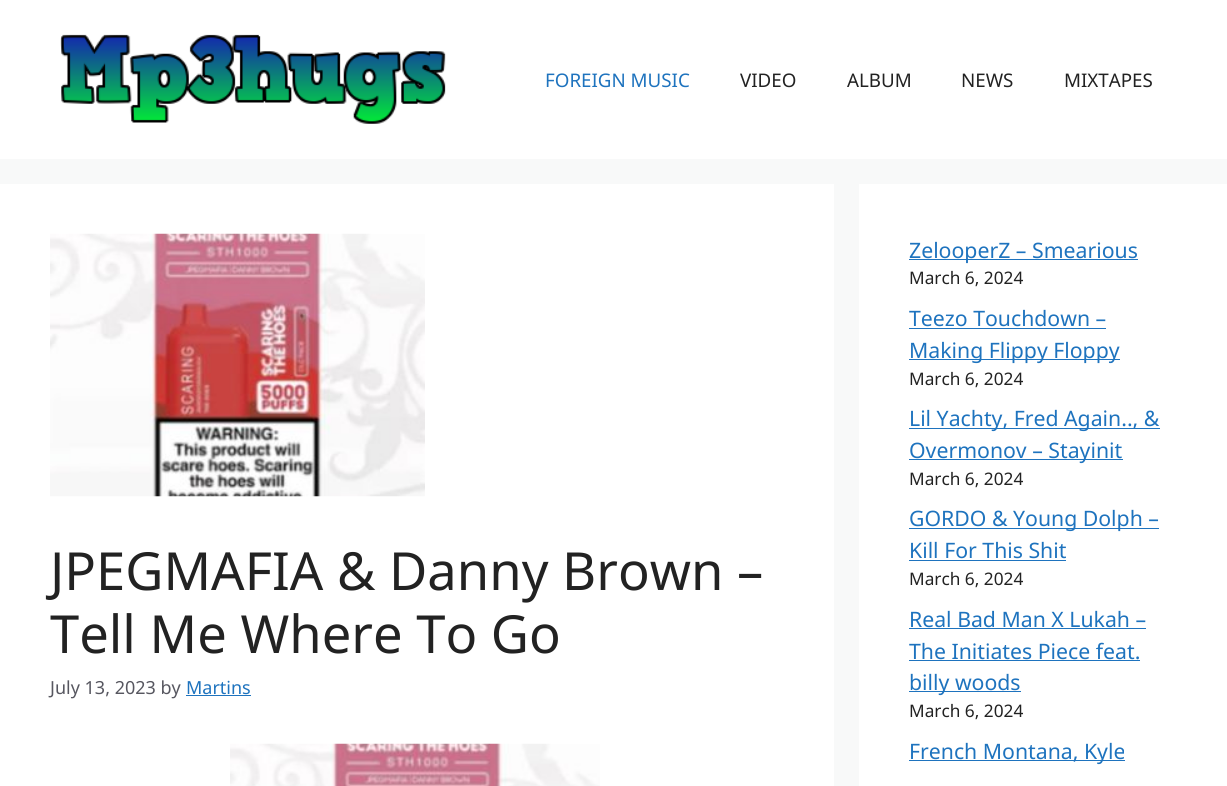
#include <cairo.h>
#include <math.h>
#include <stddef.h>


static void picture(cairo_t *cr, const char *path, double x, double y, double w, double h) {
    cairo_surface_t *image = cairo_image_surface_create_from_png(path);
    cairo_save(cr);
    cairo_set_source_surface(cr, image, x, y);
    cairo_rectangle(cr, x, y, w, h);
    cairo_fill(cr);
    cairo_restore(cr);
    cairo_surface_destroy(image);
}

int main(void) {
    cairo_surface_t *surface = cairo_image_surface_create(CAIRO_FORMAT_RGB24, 1227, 786);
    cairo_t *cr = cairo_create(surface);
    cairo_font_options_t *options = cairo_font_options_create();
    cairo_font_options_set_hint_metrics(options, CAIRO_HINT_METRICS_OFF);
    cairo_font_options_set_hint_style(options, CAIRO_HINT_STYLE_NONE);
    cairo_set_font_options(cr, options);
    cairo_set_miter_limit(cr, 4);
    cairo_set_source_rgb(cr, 0.969, 0.973, 0.976);
    cairo_paint(cr);
    cairo_set_source_rgb(cr, 1, 1, 1);
    cairo_rectangle(cr, 0, 0, 1227, 159);
    cairo_fill(cr);
    picture(cr, "img1.png", 60, 34, 386, 90);
    cairo_select_font_face(cr, "Noto Sans", CAIRO_FONT_SLANT_NORMAL, CAIRO_FONT_WEIGHT_NORMAL);
    cairo_set_font_size(cr, 18.75);
    cairo_set_source_rgb(cr, 0.118, 0.451, 0.745);
    cairo_move_to(cr, 545, 87);
    cairo_show_text(cr, "FOREIGN MUSIC");
    cairo_set_source_rgb(cr, 0.133, 0.133, 0.133);
    cairo_move_to(cr, 740, 87);
    cairo_show_text(cr, "VIDEO");
    cairo_move_to(cr, 847, 87);
    cairo_show_text(cr, "ALBUM");
    cairo_move_to(cr, 961, 87);
    cairo_show_text(cr, "NEWS");
    cairo_move_to(cr, 1064, 87);
    cairo_show_text(cr, "MIXTAPES");
    cairo_set_source_rgb(cr, 1, 1, 1);
    cairo_rectangle(cr, 0, 184, 834, 602);
    cairo_fill(cr);
    picture(cr, "img2.png", 50, 233, 375, 264);
    cairo_set_font_size(cr, 52.5);
    cairo_set_source_rgb(cr, 0.133, 0.133, 0.133);
    cairo_move_to(cr, 50, 590);
    cairo_show_text(cr, "JPEGMAFIA & Danny Brown –");
    cairo_move_to(cr, 50, 653);
    cairo_show_text(cr, "Tell Me Where To Go");
    cairo_set_font_size(cr, 18);
    cairo_set_source_rgb(cr, 0.341, 0.341, 0.376);
    cairo_move_to(cr, 50, 694);
    cairo_show_text(cr, "July 13, 2023 by");
    cairo_set_source_rgb(cr, 0.118, 0.451, 0.745);
    cairo_move_to(cr, 186, 694);
    cairo_show_text(cr, "Martins");
    cairo_rectangle(cr, 186, 695, 65, 1);
    cairo_fill(cr);
    picture(cr, "img3.png", 230, 743, 370, 43);
    cairo_set_source_rgb(cr, 1, 1, 1);
    cairo_rectangle(cr, 859, 184, 368, 602);
    cairo_fill(cr);
    cairo_set_source_rgb(cr, 0.118, 0.451, 0.745);
    cairo_rectangle(cr, 909, 259, 229, 1);
    cairo_fill(cr);
    cairo_set_font_size(cr, 21.25);
    cairo_move_to(cr, 909, 258);
    cairo_show_text(cr, "ZelooperZ – Smearious");
    cairo_set_font_size(cr, 17.25);
    cairo_set_source_rgb(cr, 0.133, 0.133, 0.133);
    cairo_move_to(cr, 909, 284);
    cairo_show_text(cr, "March 6, 2024");
    cairo_set_font_size(cr, 21.25);
    cairo_set_source_rgb(cr, 0.118, 0.451, 0.745);
    cairo_move_to(cr, 909, 326);
    cairo_show_text(cr, "Teezo Touchdown –");
    cairo_rectangle(cr, 909, 328, 197, 1);
    cairo_fill(cr);
    cairo_rectangle(cr, 909, 359, 211, 1);
    cairo_fill(cr);
    cairo_move_to(cr, 909, 358);
    cairo_show_text(cr, "Making Flippy Floppy");
    cairo_set_font_size(cr, 17.25);
    cairo_set_source_rgb(cr, 0.133, 0.133, 0.133);
    cairo_move_to(cr, 909, 385);
    cairo_show_text(cr, "March 6, 2024");
    cairo_set_source_rgb(cr, 0.118, 0.451, 0.745);
    cairo_rectangle(cr, 909, 428, 251, 1);
    cairo_fill(cr);
    cairo_set_font_size(cr, 21.25);
    cairo_move_to(cr, 909, 426);
    cairo_show_text(cr, "Lil Yachty, Fred Again.., &");
    cairo_rectangle(cr, 909, 459, 214, 1);
    cairo_fill(cr);
    cairo_move_to(cr, 909, 458);
    cairo_show_text(cr, "Overmonov – Stayinit");
    cairo_set_font_size(cr, 17.25);
    cairo_set_source_rgb(cr, 0.133, 0.133, 0.133);
    cairo_move_to(cr, 909, 485);
    cairo_show_text(cr, "March 6, 2024");
    cairo_set_source_rgb(cr, 0.118, 0.451, 0.745);
    cairo_rectangle(cr, 909, 528, 250, 1);
    cairo_fill(cr);
    cairo_set_font_size(cr, 21.25);
    cairo_move_to(cr, 909, 526);
    cairo_show_text(cr, "GORDO & Young Dolph –");
    cairo_move_to(cr, 909, 558);
    cairo_show_text(cr, "Kill For This Shit");
    cairo_rectangle(cr, 909, 560, 157, 1);
    cairo_fill(cr);
    cairo_set_font_size(cr, 17.25);
    cairo_set_source_rgb(cr, 0.133, 0.133, 0.133);
    cairo_move_to(cr, 909, 585);
    cairo_show_text(cr, "March 6, 2024");
    cairo_set_font_size(cr, 21.25);
    cairo_set_source_rgb(cr, 0.118, 0.451, 0.745);
    cairo_move_to(cr, 909, 627);
    cairo_show_text(cr, "Real Bad Man X Lukah –");
    cairo_rectangle(cr, 909, 628, 237, 1);
    cairo_fill(cr);
    cairo_move_to(cr, 909, 659);
    cairo_show_text(cr, "The Initiates Piece feat.");
    cairo_rectangle(cr, 909, 660, 231, 1);
    cairo_fill(cr);
    cairo_rectangle(cr, 909, 691, 112, 1);
    cairo_fill(cr);
    cairo_move_to(cr, 909, 690);
    cairo_show_text(cr, "billy woods");
    cairo_set_font_size(cr, 17.25);
    cairo_set_source_rgb(cr, 0.133, 0.133, 0.133);
    cairo_move_to(cr, 909, 717);
    cairo_show_text(cr, "March 6, 2024");
    cairo_set_source_rgb(cr, 0.118, 0.451, 0.745);
    cairo_rectangle(cr, 909, 760, 216, 1);
    cairo_fill(cr);
    cairo_set_font_size(cr, 21.25);
    cairo_move_to(cr, 909, 759);
    cairo_show_text(cr, "French Montana, Kyle");
    cairo_surface_write_to_png(surface, "page.png");
    cairo_font_options_destroy(options);
    cairo_destroy(cr);
    cairo_surface_destroy(surface);
    return 0;
}
